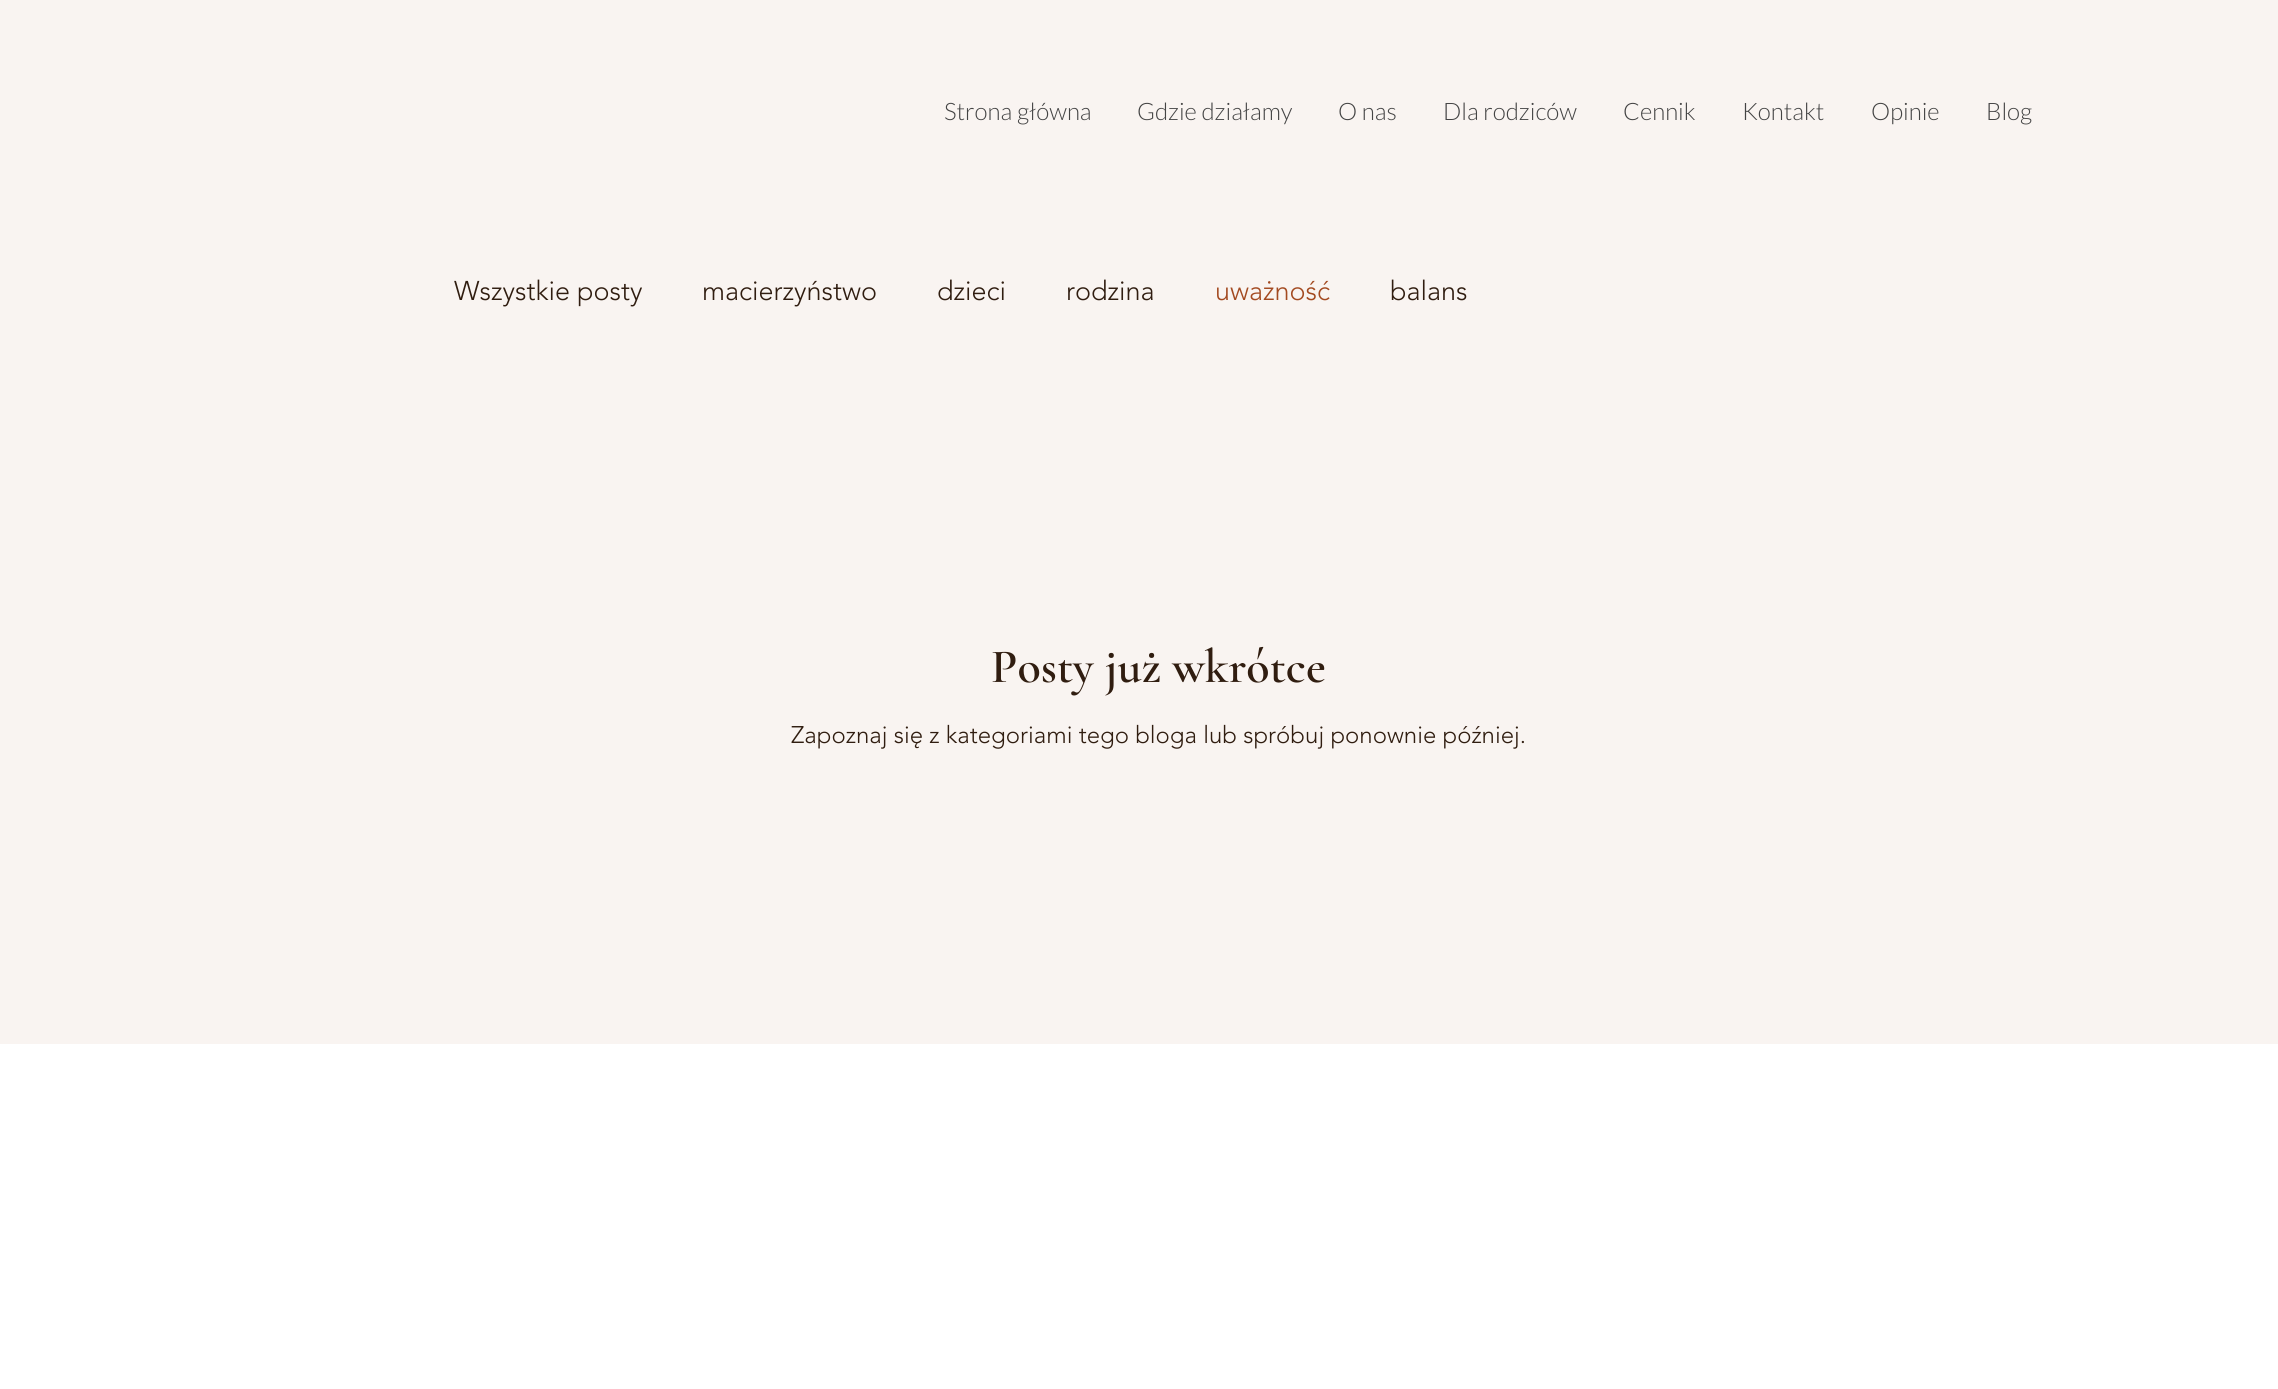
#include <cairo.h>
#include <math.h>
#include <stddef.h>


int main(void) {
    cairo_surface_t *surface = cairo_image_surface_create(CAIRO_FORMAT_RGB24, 2278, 1389);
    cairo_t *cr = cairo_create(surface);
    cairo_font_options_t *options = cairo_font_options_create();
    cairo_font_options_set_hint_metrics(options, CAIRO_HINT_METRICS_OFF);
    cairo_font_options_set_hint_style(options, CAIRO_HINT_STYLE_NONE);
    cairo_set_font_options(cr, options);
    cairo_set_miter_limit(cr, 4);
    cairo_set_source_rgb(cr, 1, 1, 1);
    cairo_paint(cr);
    cairo_set_source_rgb(cr, 0.973, 0.957, 0.945);
    cairo_rectangle(cr, 0, 0, 2278, 1044);
    cairo_fill(cr);
    cairo_select_font_face(cr, "Lato Light", CAIRO_FONT_SLANT_NORMAL, CAIRO_FONT_WEIGHT_NORMAL);
    cairo_set_font_size(cr, 24);
    cairo_set_source_rgb(cr, 0.267, 0.267, 0.267);
    cairo_move_to(cr, 944, 120);
    cairo_show_text(cr, "Strona główna");
    cairo_move_to(cr, 1137, 120);
    cairo_show_text(cr, "Gdzie działamy");
    cairo_move_to(cr, 1338, 120);
    cairo_show_text(cr, "O nas");
    cairo_move_to(cr, 1443, 120);
    cairo_show_text(cr, "Dla rodziców");
    cairo_move_to(cr, 1623, 120);
    cairo_show_text(cr, "Cennik");
    cairo_move_to(cr, 1742, 120);
    cairo_show_text(cr, "Kontakt");
    cairo_move_to(cr, 1871, 120);
    cairo_show_text(cr, "Opinie");
    cairo_move_to(cr, 1986, 120);
    cairo_show_text(cr, "Blog");
    cairo_select_font_face(cr, "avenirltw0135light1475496 Light", CAIRO_FONT_SLANT_NORMAL, CAIRO_FONT_WEIGHT_NORMAL);
    cairo_set_font_size(cr, 27);
    cairo_set_source_rgb(cr, 0.188, 0.114, 0.063);
    cairo_move_to(cr, 454, 300);
    cairo_show_text(cr, "Wszystkie posty");
    cairo_move_to(cr, 702, 300);
    cairo_show_text(cr, "macierzyństwo");
    cairo_move_to(cr, 937, 300);
    cairo_show_text(cr, "dzieci");
    cairo_move_to(cr, 1066, 300);
    cairo_show_text(cr, "rodzina");
    cairo_set_source_rgb(cr, 0.639, 0.29, 0.129);
    cairo_move_to(cr, 1215, 300);
    cairo_show_text(cr, "uważność");
    cairo_set_source_rgb(cr, 0.188, 0.114, 0.063);
    cairo_move_to(cr, 1390, 300);
    cairo_show_text(cr, "balans");
    cairo_select_font_face(cr, "Cormorant Garamond SemiBold", CAIRO_FONT_SLANT_NORMAL, CAIRO_FONT_WEIGHT_NORMAL);
    cairo_set_font_size(cr, 48);
    cairo_move_to(cr, 991, 682);
    cairo_show_text(cr, "Posty już wkrótce");
    cairo_select_font_face(cr, "avenirltw0135light1475496 Light", CAIRO_FONT_SLANT_NORMAL, CAIRO_FONT_WEIGHT_NORMAL);
    cairo_set_font_size(cr, 24);
    cairo_move_to(cr, 791, 743);
    cairo_show_text(cr, "Zapoznaj się z kategoriami tego bloga lub spróbuj ponownie później.");
    cairo_surface_write_to_png(surface, "page.png");
    cairo_font_options_destroy(options);
    cairo_destroy(cr);
    cairo_surface_destroy(surface);
    return 0;
}
